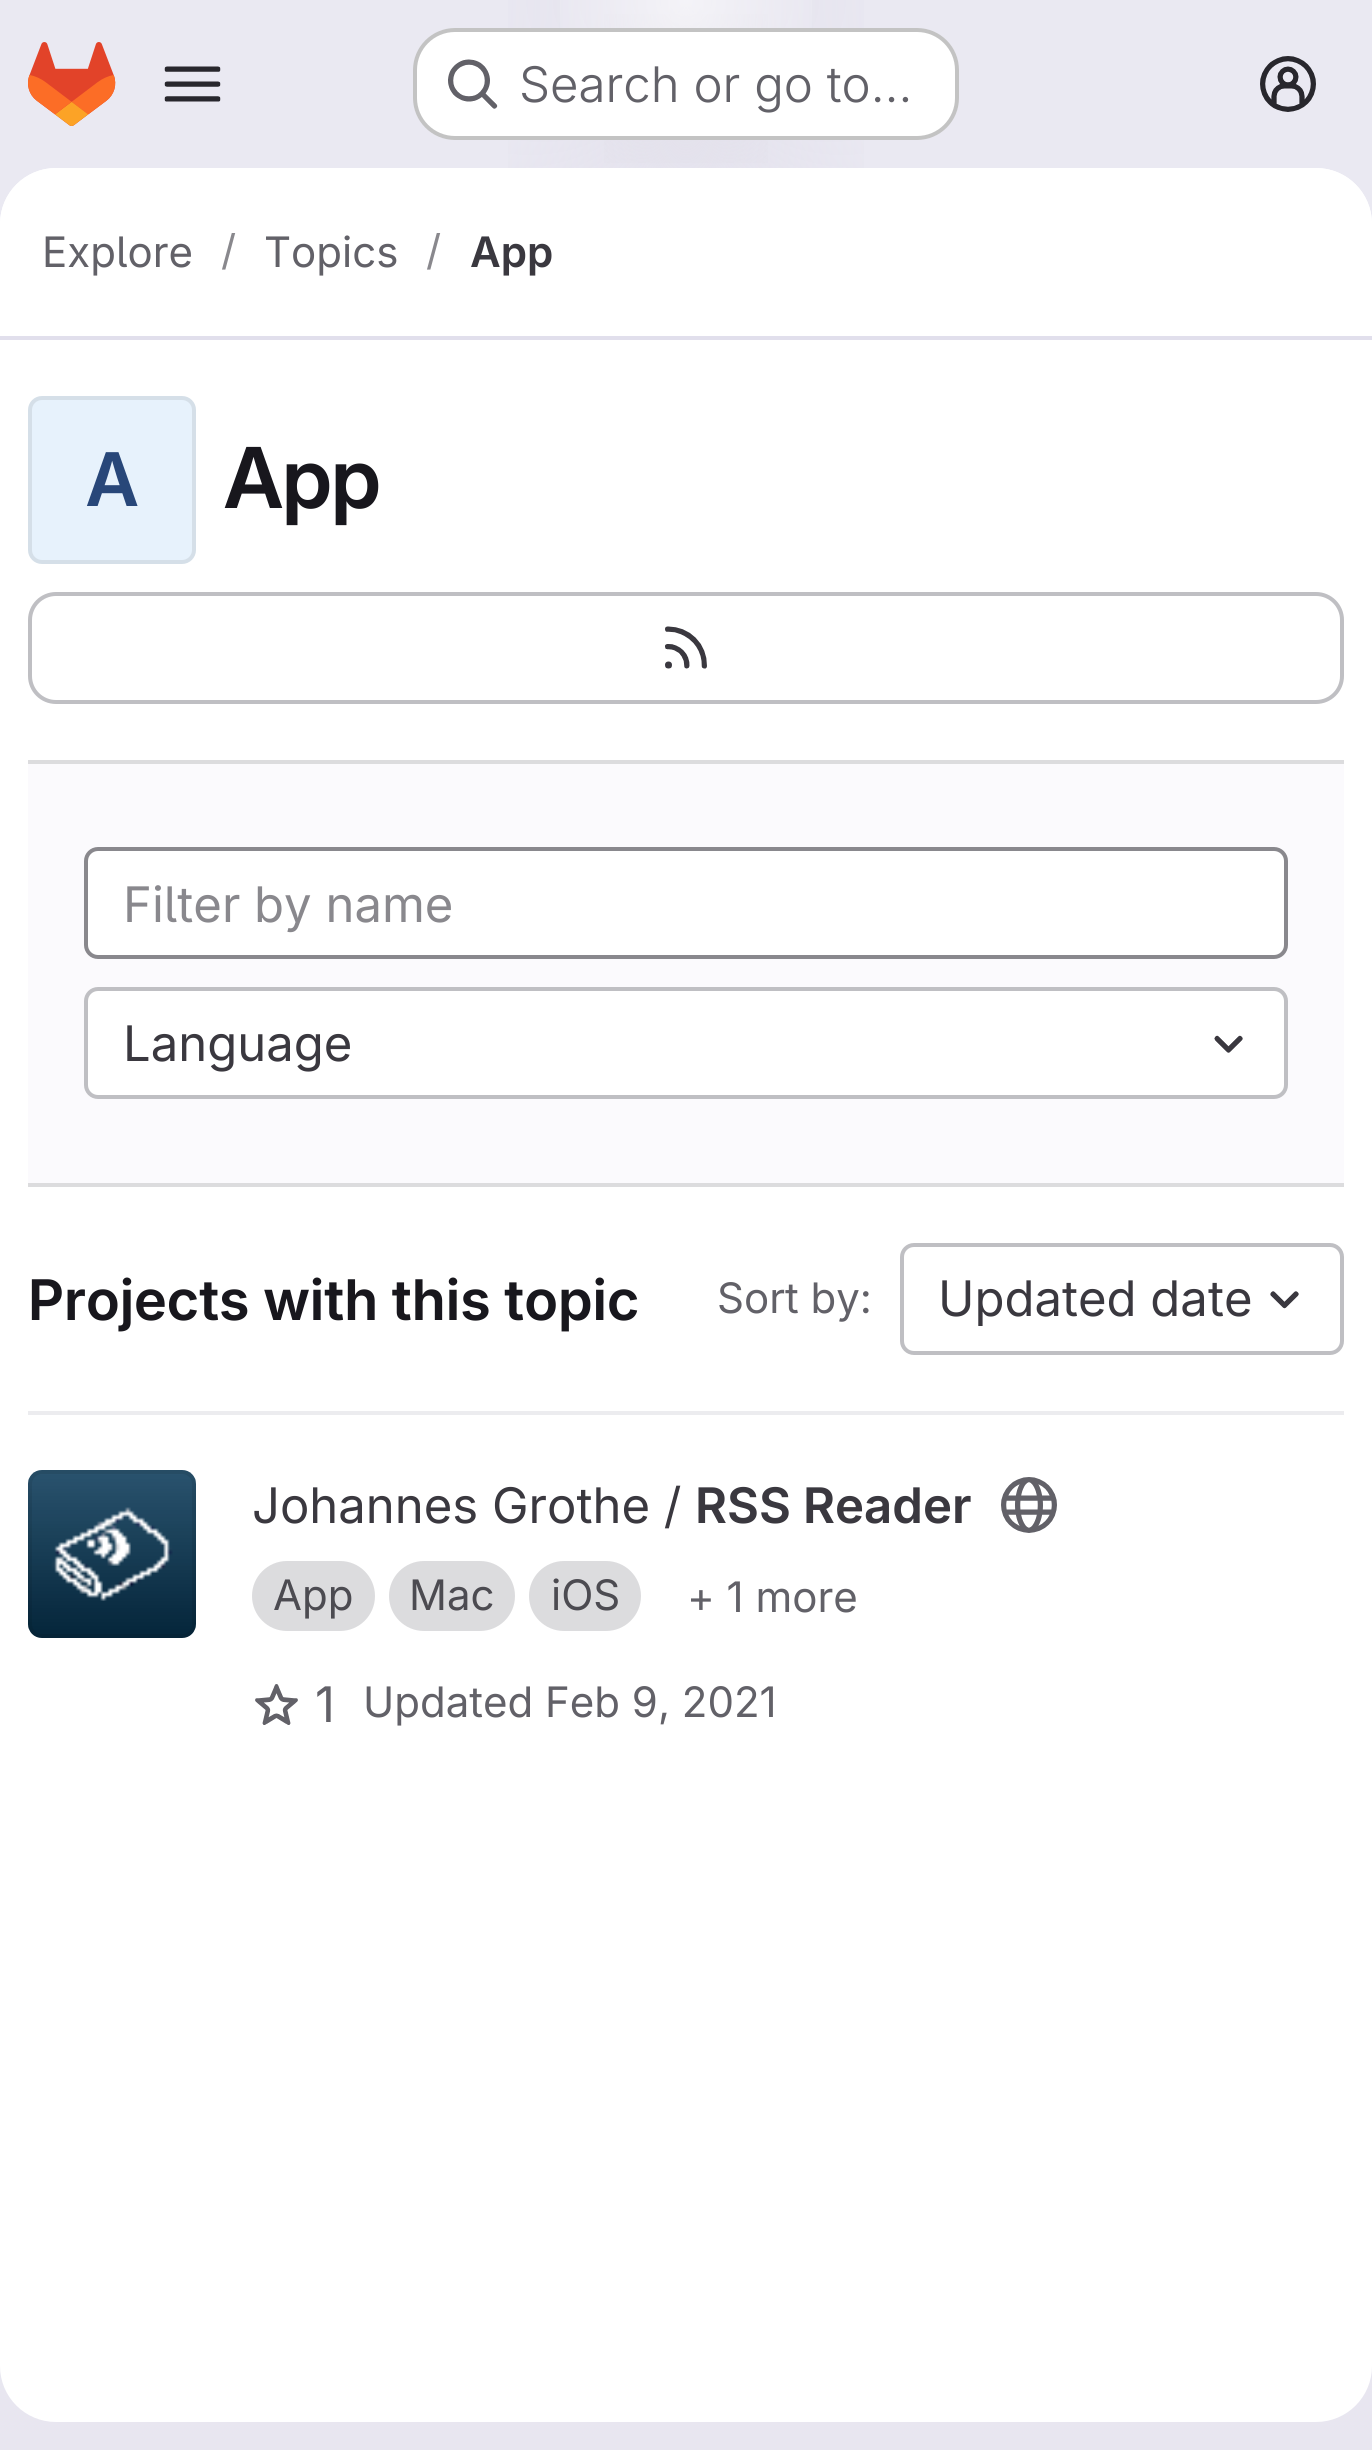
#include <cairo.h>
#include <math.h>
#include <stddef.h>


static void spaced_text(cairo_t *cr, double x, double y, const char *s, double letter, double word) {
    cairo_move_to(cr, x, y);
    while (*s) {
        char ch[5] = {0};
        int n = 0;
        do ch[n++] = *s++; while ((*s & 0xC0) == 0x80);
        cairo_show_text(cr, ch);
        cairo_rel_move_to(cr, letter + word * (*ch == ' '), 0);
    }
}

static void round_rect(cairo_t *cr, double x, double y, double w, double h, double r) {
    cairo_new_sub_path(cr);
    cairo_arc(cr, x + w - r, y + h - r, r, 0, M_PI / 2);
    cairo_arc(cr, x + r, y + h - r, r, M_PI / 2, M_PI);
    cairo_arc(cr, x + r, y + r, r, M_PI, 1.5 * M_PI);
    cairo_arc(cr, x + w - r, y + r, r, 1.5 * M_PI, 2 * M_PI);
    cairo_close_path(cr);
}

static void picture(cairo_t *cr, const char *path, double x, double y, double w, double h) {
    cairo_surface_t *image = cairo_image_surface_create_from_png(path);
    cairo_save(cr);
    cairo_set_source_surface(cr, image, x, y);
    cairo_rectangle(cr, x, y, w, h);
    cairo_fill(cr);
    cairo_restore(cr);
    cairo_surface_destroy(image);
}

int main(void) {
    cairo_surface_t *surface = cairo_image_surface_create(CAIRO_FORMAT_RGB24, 1372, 2450);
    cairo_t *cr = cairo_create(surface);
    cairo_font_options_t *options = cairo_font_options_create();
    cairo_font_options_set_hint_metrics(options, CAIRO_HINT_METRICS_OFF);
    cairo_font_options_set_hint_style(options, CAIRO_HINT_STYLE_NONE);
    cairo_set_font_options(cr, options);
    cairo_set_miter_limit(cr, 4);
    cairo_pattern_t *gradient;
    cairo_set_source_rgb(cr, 1, 1, 1);
    cairo_paint(cr);
    gradient = cairo_pattern_create_linear(916, 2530, 456, -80);
    cairo_pattern_add_color_stop_rgba(gradient, 0, 0.91, 0.902, 0.941, 1);
    cairo_pattern_add_color_stop_rgba(gradient, 0.7, 0.918, 0.914, 0.949, 1);
    cairo_set_source(cr, gradient);
    cairo_pattern_destroy(gradient);
    cairo_rectangle(cr, 0, 0, 1372, 2450);
    cairo_fill(cr);
    gradient = cairo_pattern_create_radial(0, 0, 0, 0, 0, 1);
    cairo_pattern_set_matrix(gradient, &(cairo_matrix_t){1.0 / 686, 0, 0, 1.0 / 2450, -1.0 * 686 / 686, -1.0 * 0 / 2450});
    cairo_pattern_add_color_stop_rgba(gradient, 0, 0.894, 0.886, 0.929, 1);
    cairo_pattern_add_color_stop_rgba(gradient, 0.36, 0.894, 0.886, 0.929, 0);
    cairo_set_source(cr, gradient);
    cairo_pattern_destroy(gradient);
    cairo_rectangle(cr, 508, 0, 356, 168);
    cairo_fill(cr);
    gradient = cairo_pattern_create_radial(0, 0, 0, 0, 0, 1);
    cairo_pattern_set_matrix(gradient, &(cairo_matrix_t){1.0 / 686, 0, 0, 1.0 / 2450, -1.0 * 686 / 686, -1.0 * 0 / 2450});
    cairo_pattern_add_color_stop_rgba(gradient, 0, 0.894, 0.886, 0.925, 1);
    cairo_pattern_add_color_stop_rgba(gradient, 0.26, 0.894, 0.886, 0.925, 0);
    cairo_set_source(cr, gradient);
    cairo_pattern_destroy(gradient);
    cairo_rectangle(cr, 604, 14, 164, 149);
    cairo_fill(cr);
    gradient = cairo_pattern_create_radial(686, 0, 0, 686, 0, 2544);
    cairo_pattern_add_color_stop_rgba(gradient, 0, 1, 1, 1, 0.6);
    cairo_pattern_add_color_stop_rgba(gradient, 0.06, 1, 1, 1, 0);
    cairo_set_source(cr, gradient);
    cairo_pattern_destroy(gradient);
    cairo_rectangle(cr, 560, 0, 252, 130);
    cairo_fill(cr);
    picture(cr, "img1.png", 28, 42, 88, 84);
    picture(cr, "img2.png", 164, 66, 57, 36);
    cairo_set_source_rgb(cr, 1, 1, 1);
    round_rect(cr, 413, 28, 546, 112, 42);
    cairo_fill(cr);
    round_rect(cr, 415, 30, 542, 108, 40);
    cairo_set_source_rgba(cr, 0.02, 0.02, 0.024, 0.24);
    cairo_set_line_width(cr, 4);
    cairo_stroke(cr);
    picture(cr, "img3.png", 448, 59, 50, 50);
    cairo_select_font_face(cr, "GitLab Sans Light", CAIRO_FONT_SLANT_NORMAL, CAIRO_FONT_WEIGHT_NORMAL);
    cairo_set_font_size(cr, 49);
    cairo_set_source_rgb(cr, 0.384, 0.38, 0.408);
    cairo_move_to(cr, 519, 102);
    cairo_show_text(cr, "Search or go to…");
    picture(cr, "img4.png", 1260, 56, 56, 56);
    cairo_set_source_rgb(cr, 1, 1, 1);
    round_rect(cr, 0, 168, 1372, 2254, 56);
    cairo_fill(cr);
    cairo_new_path(cr);
    cairo_move_to(cr, 56, 168);
    cairo_line_to(cr, 1316, 168);
    cairo_curve_to(cr, 1347, 168, 1372, 193, 1372, 224);
    cairo_line_to(cr, 1372, 340);
    cairo_line_to(cr, 0, 340);
    cairo_line_to(cr, 0, 224);
    cairo_curve_to(cr, 0, 193, 25, 168, 56, 168);
    cairo_close_path(cr);
    cairo_fill(cr);
    cairo_set_source_rgb(cr, 0.882, 0.875, 0.925);
    cairo_rectangle(cr, 0, 336, 1372, 4);
    cairo_fill(cr);
    cairo_select_font_face(cr, "GitLab Sans", CAIRO_FONT_SLANT_NORMAL, CAIRO_FONT_WEIGHT_NORMAL);
    cairo_set_font_size(cr, 42);
    cairo_set_source_rgb(cr, 0.384, 0.38, 0.408);
    cairo_move_to(cr, 42, 267);
    cairo_show_text(cr, "Explore");
    cairo_set_source_rgb(cr, 0.537, 0.533, 0.553);
    cairo_move_to(cr, 221, 265);
    cairo_show_text(cr, "/");
    cairo_set_source_rgb(cr, 0.384, 0.38, 0.408);
    cairo_move_to(cr, 264, 267);
    cairo_show_text(cr, "Topics");
    cairo_set_source_rgb(cr, 0.537, 0.533, 0.553);
    cairo_move_to(cr, 426, 265);
    cairo_show_text(cr, "/");
    cairo_select_font_face(cr, "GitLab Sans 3 SemiBold", CAIRO_FONT_SLANT_NORMAL, CAIRO_FONT_WEIGHT_NORMAL);
    cairo_set_source_rgb(cr, 0.227, 0.22, 0.247);
    cairo_move_to(cr, 470, 267);
    cairo_show_text(cr, "App");
    cairo_set_source_rgb(cr, 0.906, 0.949, 0.988);
    round_rect(cr, 28, 396, 168, 168, 14);
    cairo_fill(cr);
    round_rect(cr, 30, 398, 164, 164, 12);
    cairo_set_source_rgba(cr, 0.02, 0.02, 0.024, 0.08);
    cairo_stroke(cr);
    cairo_select_font_face(cr, "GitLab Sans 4 SemiBold", CAIRO_FONT_SLANT_NORMAL, CAIRO_FONT_WEIGHT_NORMAL);
    cairo_set_font_size(cr, 74);
    cairo_set_source_rgb(cr, 0.157, 0.278, 0.475);
    spaced_text(cr, 86, 506, "A", -1, 0);
    cairo_select_font_face(cr, "GitLab Sans SemiBold", CAIRO_FONT_SLANT_NORMAL, CAIRO_FONT_WEIGHT_NORMAL);
    cairo_set_font_size(cr, 84);
    cairo_set_source_rgb(cr, 0.094, 0.09, 0.114);
    spaced_text(cr, 224, 508, "App", -1, 0);
    round_rect(cr, 30, 594, 1312, 108, 26);
    cairo_set_source_rgb(cr, 0.749, 0.749, 0.765);
    cairo_stroke(cr);
    picture(cr, "img5.png", 665, 626, 42, 43);
    cairo_set_source_rgb(cr, 0.984, 0.98, 0.992);
    cairo_rectangle(cr, 28, 764, 1316, 419);
    cairo_fill(cr);
    cairo_set_source_rgb(cr, 0.863, 0.863, 0.871);
    cairo_rectangle(cr, 28, 760, 1316, 4);
    cairo_fill(cr);
    cairo_rectangle(cr, 28, 1183, 1316, 4);
    cairo_fill(cr);
    cairo_set_source_rgb(cr, 1, 1, 1);
    round_rect(cr, 86, 849, 1200, 108, 12);
    cairo_fill_preserve(cr);
    cairo_set_source_rgb(cr, 0.537, 0.533, 0.553);
    cairo_stroke(cr);
    cairo_select_font_face(cr, "GitLab Sans", CAIRO_FONT_SLANT_NORMAL, CAIRO_FONT_WEIGHT_NORMAL);
    cairo_set_font_size(cr, 49);
    cairo_move_to(cr, 123, 922);
    cairo_show_text(cr, "Filter by name");
    cairo_set_source_rgb(cr, 1, 1, 1);
    round_rect(cr, 86, 989, 1200, 108, 12);
    cairo_fill_preserve(cr);
    cairo_set_source_rgb(cr, 0.749, 0.749, 0.765);
    cairo_stroke(cr);
    cairo_set_source_rgb(cr, 0.227, 0.22, 0.247);
    cairo_move_to(cr, 123, 1061);
    cairo_show_text(cr, "Language");
    picture(cr, "img6.png", 1214, 1035, 29, 18);
    cairo_set_source_rgb(cr, 0.925, 0.925, 0.937);
    cairo_rectangle(cr, 28, 1411, 1316, 4);
    cairo_fill(cr);
    cairo_select_font_face(cr, "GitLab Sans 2 SemiBold", CAIRO_FONT_SLANT_NORMAL, CAIRO_FONT_WEIGHT_NORMAL);
    cairo_set_font_size(cr, 56);
    cairo_set_source_rgb(cr, 0.094, 0.09, 0.114);
    cairo_move_to(cr, 28, 1320);
    cairo_show_text(cr, "Projects with this topic");
    cairo_select_font_face(cr, "GitLab Sans", CAIRO_FONT_SLANT_NORMAL, CAIRO_FONT_WEIGHT_NORMAL);
    cairo_set_font_size(cr, 42);
    cairo_set_source_rgb(cr, 0.384, 0.38, 0.408);
    cairo_move_to(cr, 717, 1313);
    cairo_show_text(cr, "Sort by:");
    round_rect(cr, 902, 1245, 440, 108, 12);
    cairo_set_source_rgb(cr, 0.749, 0.749, 0.765);
    cairo_stroke(cr);
    cairo_set_font_size(cr, 49);
    cairo_set_source_rgb(cr, 0.227, 0.22, 0.247);
    cairo_move_to(cr, 938, 1316);
    cairo_show_text(cr, "Updated date");
    picture(cr, "img7.png", 1270, 1291, 29, 18);
    picture(cr, "img8.png", 28, 1470, 168, 168);
    round_rect(cr, 30, 1472, 164, 164, 12);
    cairo_set_source_rgba(cr, 0.02, 0.02, 0.024, 0.08);
    cairo_stroke(cr);
    cairo_set_source_rgb(cr, 0.227, 0.22, 0.247);
    cairo_move_to(cr, 252, 1523);
    cairo_show_text(cr, "Johannes Grothe /");
    cairo_select_font_face(cr, "GitLab Sans 3 SemiBold", CAIRO_FONT_SLANT_NORMAL, CAIRO_FONT_WEIGHT_NORMAL);
    cairo_move_to(cr, 695, 1523);
    cairo_show_text(cr, "RSS Reader");
    picture(cr, "img9.png", 1001, 1477, 56, 56);
    cairo_set_source_rgb(cr, 0.863, 0.863, 0.871);
    round_rect(cr, 252, 1561, 123, 70, 35);
    cairo_fill(cr);
    cairo_select_font_face(cr, "GitLab Sans", CAIRO_FONT_SLANT_NORMAL, CAIRO_FONT_WEIGHT_NORMAL);
    cairo_set_font_size(cr, 42);
    cairo_set_source_rgb(cr, 0.298, 0.294, 0.318);
    cairo_move_to(cr, 273, 1610);
    cairo_show_text(cr, "App");
    cairo_set_source_rgb(cr, 0.863, 0.863, 0.871);
    round_rect(cr, 389, 1561, 126, 70, 35);
    cairo_fill(cr);
    cairo_set_source_rgb(cr, 0.298, 0.294, 0.318);
    cairo_move_to(cr, 409, 1610);
    cairo_show_text(cr, "Mac");
    cairo_set_source_rgb(cr, 0.863, 0.863, 0.871);
    round_rect(cr, 529, 1561, 112, 70, 35);
    cairo_fill(cr);
    cairo_set_source_rgb(cr, 0.298, 0.294, 0.318);
    cairo_move_to(cr, 551, 1610);
    cairo_show_text(cr, "iOS");
    cairo_set_source_rgb(cr, 0.384, 0.38, 0.408);
    cairo_move_to(cr, 687, 1612);
    cairo_show_text(cr, "+ 1 more");
    picture(cr, "img10.png", 255, 1684, 43, 41);
    cairo_set_font_size(cr, 49);
    cairo_move_to(cr, 315, 1722);
    cairo_show_text(cr, "1");
    cairo_set_font_size(cr, 42);
    cairo_move_to(cr, 363, 1717);
    cairo_show_text(cr, "Updated Feb 9, 2021");
    cairo_surface_write_to_png(surface, "page.png");
    cairo_font_options_destroy(options);
    cairo_destroy(cr);
    cairo_surface_destroy(surface);
    return 0;
}
